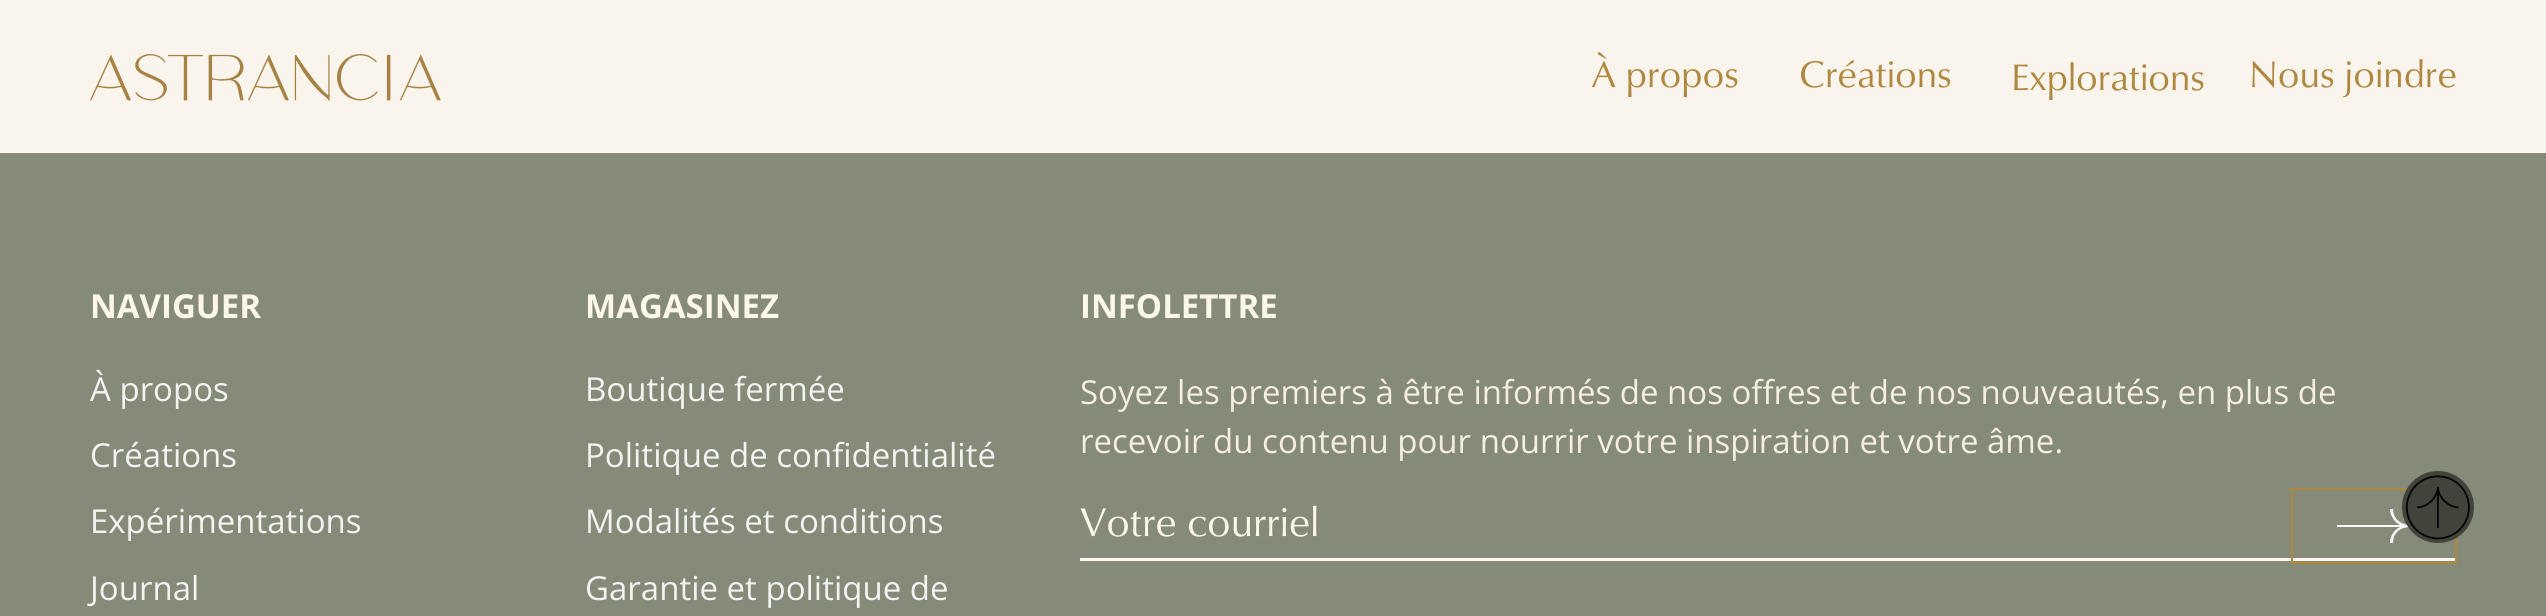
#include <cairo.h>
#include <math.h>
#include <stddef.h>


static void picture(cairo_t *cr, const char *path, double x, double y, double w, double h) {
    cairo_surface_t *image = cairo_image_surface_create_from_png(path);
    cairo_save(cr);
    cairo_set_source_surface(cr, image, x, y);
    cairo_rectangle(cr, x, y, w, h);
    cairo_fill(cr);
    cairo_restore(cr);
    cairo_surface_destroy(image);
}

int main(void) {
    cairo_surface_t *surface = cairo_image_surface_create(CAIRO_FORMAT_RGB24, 2546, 616);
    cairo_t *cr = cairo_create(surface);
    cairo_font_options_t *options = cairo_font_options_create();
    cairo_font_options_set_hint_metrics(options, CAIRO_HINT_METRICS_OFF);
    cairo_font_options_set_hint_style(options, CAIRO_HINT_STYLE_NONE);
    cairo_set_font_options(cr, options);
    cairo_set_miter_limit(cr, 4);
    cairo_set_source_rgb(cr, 0.973, 0.957, 0.925);
    cairo_paint(cr);
    picture(cr, "img1.png", 90, 54, 351, 47);
    cairo_select_font_face(cr, "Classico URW", CAIRO_FONT_SLANT_NORMAL, CAIRO_FONT_WEIGHT_NORMAL);
    cairo_set_font_size(cr, 38);
    cairo_set_source_rgb(cr, 0.69, 0.529, 0.247);
    cairo_move_to(cr, 1591, 87);
    cairo_show_text(cr, "À propos");
    cairo_move_to(cr, 1799, 87);
    cairo_show_text(cr, "Créations");
    cairo_move_to(cr, 2011, 90);
    cairo_show_text(cr, "Explorations");
    cairo_move_to(cr, 2249, 87);
    cairo_show_text(cr, "Nous joindre");
    cairo_set_source_rgb(cr, 0.525, 0.541, 0.471);
    cairo_rectangle(cr, 0, 153, 2546, 463);
    cairo_fill(cr);
    cairo_select_font_face(cr, "Open Sans", CAIRO_FONT_SLANT_NORMAL, CAIRO_FONT_WEIGHT_BOLD);
    cairo_set_font_size(cr, 33);
    cairo_set_source_rgb(cr, 0.984, 0.969, 0.914);
    cairo_move_to(cr, 90, 318);
    cairo_show_text(cr, "NAVIGUER");
    cairo_select_font_face(cr, "Open Sans", CAIRO_FONT_SLANT_NORMAL, CAIRO_FONT_WEIGHT_NORMAL);
    cairo_set_source_rgb(cr, 0.953, 0.953, 0.945);
    cairo_move_to(cr, 90, 401);
    cairo_show_text(cr, "À propos");
    cairo_move_to(cr, 90, 467);
    cairo_show_text(cr, "Créations");
    cairo_move_to(cr, 90, 533);
    cairo_show_text(cr, "Expérimentations");
    cairo_move_to(cr, 90, 600);
    cairo_show_text(cr, "Journal");
    cairo_select_font_face(cr, "Open Sans", CAIRO_FONT_SLANT_NORMAL, CAIRO_FONT_WEIGHT_BOLD);
    cairo_set_source_rgb(cr, 0.984, 0.969, 0.914);
    cairo_move_to(cr, 585, 318);
    cairo_show_text(cr, "MAGASINEZ");
    cairo_select_font_face(cr, "Open Sans", CAIRO_FONT_SLANT_NORMAL, CAIRO_FONT_WEIGHT_NORMAL);
    cairo_set_source_rgb(cr, 0.953, 0.953, 0.945);
    cairo_move_to(cr, 585, 401);
    cairo_show_text(cr, "Boutique fermée");
    cairo_move_to(cr, 585, 467);
    cairo_show_text(cr, "Politique de confidentialité");
    cairo_move_to(cr, 585, 533);
    cairo_show_text(cr, "Modalités et conditions");
    cairo_move_to(cr, 585, 600);
    cairo_show_text(cr, "Garantie et politique de");
    cairo_select_font_face(cr, "Open Sans", CAIRO_FONT_SLANT_NORMAL, CAIRO_FONT_WEIGHT_BOLD);
    cairo_set_source_rgb(cr, 0.984, 0.969, 0.914);
    cairo_move_to(cr, 1080, 318);
    cairo_show_text(cr, "INFOLETTRE");
    cairo_select_font_face(cr, "Open Sans", CAIRO_FONT_SLANT_NORMAL, CAIRO_FONT_WEIGHT_NORMAL);
    cairo_set_source_rgb(cr, 0.957, 0.933, 0.886);
    cairo_move_to(cr, 1080, 404);
    cairo_show_text(cr, "Soyez les premiers à être informés de nos offres et de nos nouveautés, en plus de");
    cairo_move_to(cr, 1080, 453);
    cairo_show_text(cr, "recevoir du contenu pour nourrir votre inspiration et votre âme.");
    cairo_set_source_rgb(cr, 0.973, 0.957, 0.925);
    cairo_rectangle(cr, 1080, 558, 1377, 3);
    cairo_fill(cr);
    cairo_select_font_face(cr, "Classico URW", CAIRO_FONT_SLANT_NORMAL, CAIRO_FONT_WEIGHT_NORMAL);
    cairo_set_font_size(cr, 41.25);
    cairo_set_source_rgb(cr, 0.984, 0.969, 0.914);
    cairo_move_to(cr, 1080, 536);
    cairo_show_text(cr, "Votre courriel");
    cairo_rectangle(cr, 2292, 489, 164, 74);
    cairo_set_source_rgb(cr, 0.69, 0.529, 0.247);
    cairo_stroke(cr);
    cairo_set_source_rgb(cr, 0.965, 0.965, 0.965);
    cairo_new_path(cr);
    cairo_move_to(cr, 2393, 509);
    cairo_line_to(cr, 2390, 509);
    cairo_curve_to(cr, 2390, 515, 2394, 522, 2400, 525);
    cairo_line_to(cr, 2337, 525);
    cairo_line_to(cr, 2337, 527);
    cairo_line_to(cr, 2400, 527);
    cairo_curve_to(cr, 2394, 530, 2390, 536, 2390, 543);
    cairo_line_to(cr, 2393, 543);
    cairo_curve_to(cr, 2393, 533, 2400, 527, 2411, 527);
    cairo_line_to(cr, 2411, 525);
    cairo_curve_to(cr, 2400, 525, 2393, 518, 2393, 509);
    cairo_close_path(cr);
    cairo_fill(cr);
    cairo_set_source_rgb(cr, 0.259, 0.267, 0.231);
    cairo_arc(cr, 2438, 507, 36, 0, 2 * M_PI);
    cairo_fill(cr);
    picture(cr, "img2.png", 2406, 475, 64, 65);
    cairo_surface_write_to_png(surface, "page.png");
    cairo_font_options_destroy(options);
    cairo_destroy(cr);
    cairo_surface_destroy(surface);
    return 0;
}
